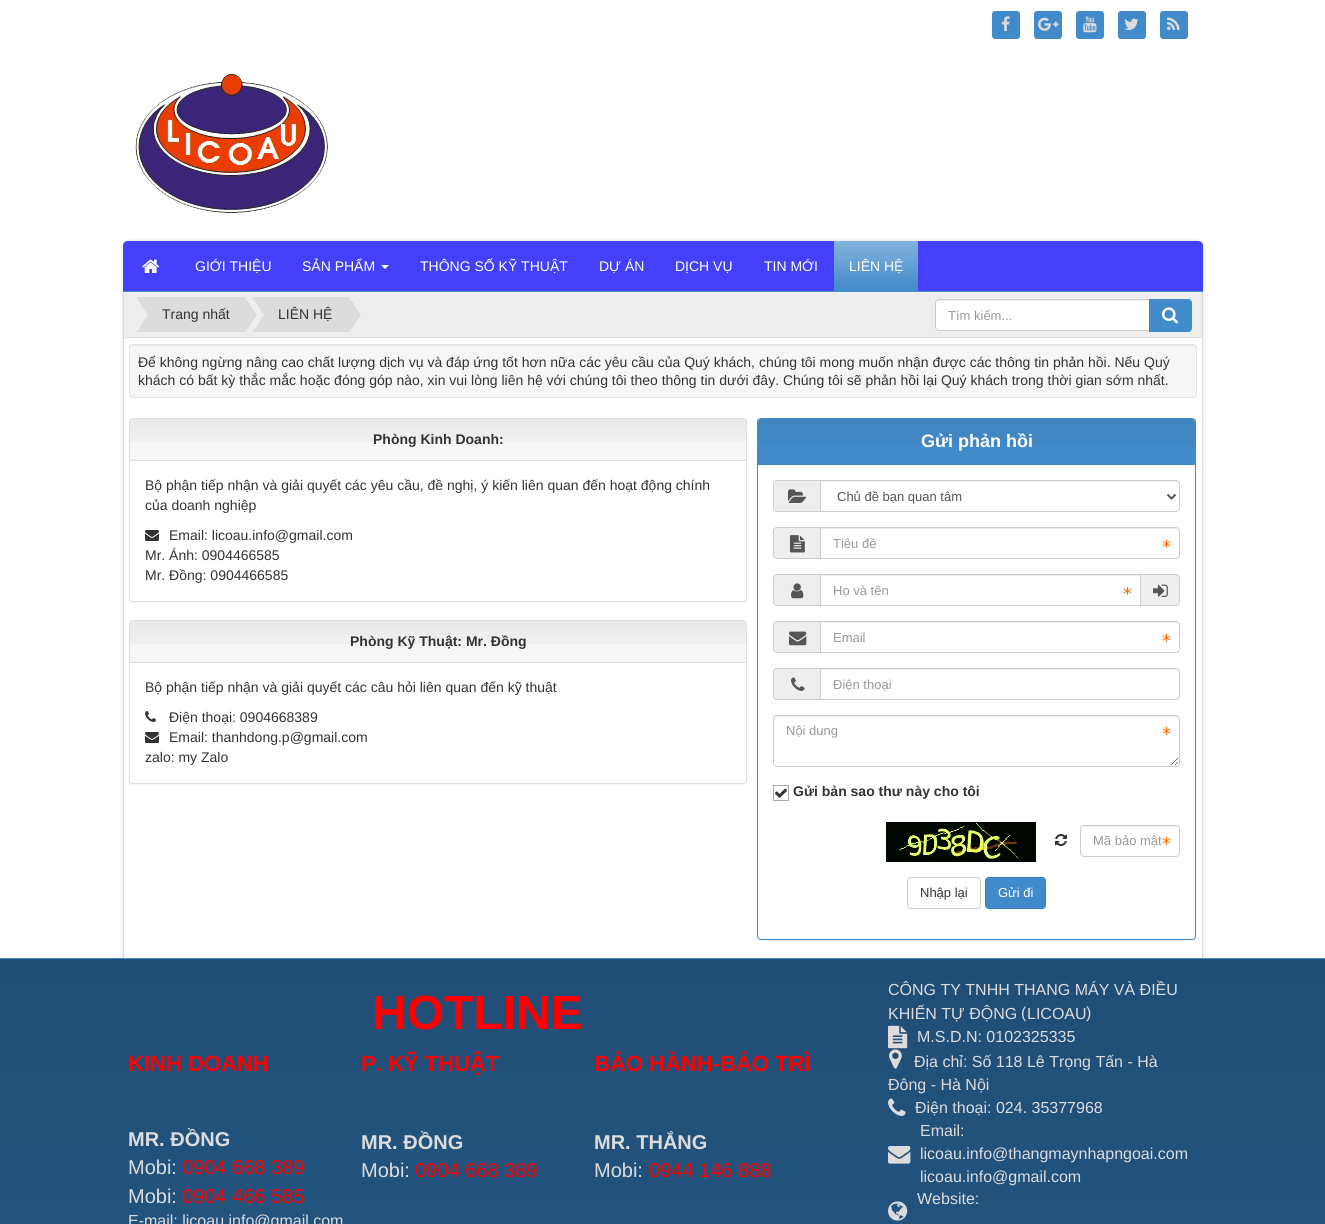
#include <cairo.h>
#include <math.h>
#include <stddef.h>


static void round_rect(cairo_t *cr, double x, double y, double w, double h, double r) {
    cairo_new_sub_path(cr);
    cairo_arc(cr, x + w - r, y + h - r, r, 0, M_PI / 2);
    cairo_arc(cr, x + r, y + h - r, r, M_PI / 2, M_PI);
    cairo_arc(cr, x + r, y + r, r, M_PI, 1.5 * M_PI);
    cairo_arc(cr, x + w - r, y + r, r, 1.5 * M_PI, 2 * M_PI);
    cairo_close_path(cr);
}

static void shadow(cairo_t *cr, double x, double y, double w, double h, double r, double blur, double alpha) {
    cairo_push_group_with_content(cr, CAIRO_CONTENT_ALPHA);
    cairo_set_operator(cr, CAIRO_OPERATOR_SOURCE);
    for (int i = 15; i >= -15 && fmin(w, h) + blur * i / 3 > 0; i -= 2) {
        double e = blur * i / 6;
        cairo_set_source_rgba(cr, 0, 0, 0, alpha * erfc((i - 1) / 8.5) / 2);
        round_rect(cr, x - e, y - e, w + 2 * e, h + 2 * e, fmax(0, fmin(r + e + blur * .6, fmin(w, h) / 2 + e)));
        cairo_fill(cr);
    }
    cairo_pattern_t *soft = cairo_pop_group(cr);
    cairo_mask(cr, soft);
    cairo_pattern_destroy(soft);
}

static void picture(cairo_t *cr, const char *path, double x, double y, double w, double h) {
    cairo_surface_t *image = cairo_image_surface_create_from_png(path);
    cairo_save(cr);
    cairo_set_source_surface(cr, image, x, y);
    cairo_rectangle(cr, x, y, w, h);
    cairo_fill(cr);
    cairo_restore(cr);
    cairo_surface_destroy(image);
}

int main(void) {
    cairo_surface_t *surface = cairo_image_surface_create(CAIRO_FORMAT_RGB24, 1325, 1224);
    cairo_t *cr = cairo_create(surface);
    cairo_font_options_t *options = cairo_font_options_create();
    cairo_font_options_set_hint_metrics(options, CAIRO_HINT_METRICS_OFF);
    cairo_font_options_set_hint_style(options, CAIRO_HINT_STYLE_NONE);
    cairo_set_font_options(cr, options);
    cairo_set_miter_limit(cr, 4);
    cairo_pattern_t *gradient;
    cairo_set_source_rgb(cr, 1, 1, 1);
    cairo_paint(cr);
    cairo_set_source_rgb(cr, 0.259, 0.545, 0.792);
    round_rect(cr, 992, 11, 28, 28, 3);
    cairo_fill(cr);
    picture(cr, "img1.png", 1001, 16, 9, 16);
    round_rect(cr, 1034, 11, 28, 28, 3);
    cairo_fill(cr);
    picture(cr, "img2.png", 1038, 17, 21, 14);
    round_rect(cr, 1076, 11, 28, 28, 3);
    cairo_fill(cr);
    picture(cr, "img3.png", 1083, 16, 14, 17);
    round_rect(cr, 1118, 11, 28, 28, 3);
    cairo_fill(cr);
    picture(cr, "img4.png", 1124, 18, 15, 12);
    round_rect(cr, 1160, 11, 28, 28, 3);
    cairo_fill(cr);
    picture(cr, "img5.png", 1167, 17, 13, 13);
    picture(cr, "img6.png", 135, 73, 193, 140);
    cairo_set_source_rgb(cr, 0, 0, 0);
    shadow(cr, 123, 241, 1080, 51, 5, 2, 0.15);
    shadow(cr, 123, 292, 1080, 666, 0, 2, 0.15);
    cairo_set_source_rgb(cr, 0.267, 0.251, 0.98);
    cairo_new_path(cr);
    cairo_move_to(cr, 128, 241);
    cairo_line_to(cr, 1198, 241);
    cairo_curve_to(cr, 1201, 241, 1203, 243, 1203, 246);
    cairo_line_to(cr, 1203, 291);
    cairo_line_to(cr, 123, 291);
    cairo_line_to(cr, 123, 246);
    cairo_curve_to(cr, 123, 243, 125, 241, 128, 241);
    cairo_close_path(cr);
    cairo_fill(cr);
    cairo_set_source_rgb(cr, 0.259, 0.545, 0.792);
    cairo_rectangle(cr, 123, 291, 1080, 1);
    cairo_fill(cr);
    picture(cr, "img7.png", 142, 259, 17, 14);
    cairo_select_font_face(cr, "Liberation Sans", CAIRO_FONT_SLANT_NORMAL, CAIRO_FONT_WEIGHT_NORMAL);
    cairo_set_font_size(cr, 14);
    cairo_set_source_rgb(cr, 1, 1, 1);
    cairo_move_to(cr, 195, 271);
    cairo_show_text(cr, "GIỚI THIỆU");
    cairo_move_to(cr, 302, 271);
    cairo_show_text(cr, "SẢN PHẨM");
    cairo_new_path(cr);
    cairo_move_to(cr, 381, 265);
    cairo_line_to(cr, 389, 265);
    cairo_line_to(cr, 385, 269);
    cairo_close_path(cr);
    cairo_fill(cr);
    cairo_move_to(cr, 420, 271);
    cairo_show_text(cr, "THÔNG SỐ KỸ THUẬT");
    cairo_move_to(cr, 599, 271);
    cairo_show_text(cr, "DỰ ÁN");
    cairo_move_to(cr, 675, 271);
    cairo_show_text(cr, "DỊCH VỤ");
    cairo_move_to(cr, 764, 271);
    cairo_show_text(cr, "TIN MỚI");
    gradient = cairo_pattern_create_linear(876, 241, 876, 291);
    cairo_pattern_add_color_stop_rgba(gradient, 0, 0.51, 0.698, 0.863, 1);
    cairo_pattern_add_color_stop_rgba(gradient, 1, 0.259, 0.545, 0.792, 1);
    cairo_set_source(cr, gradient);
    cairo_pattern_destroy(gradient);
    cairo_rectangle(cr, 834, 241, 84, 50);
    cairo_fill(cr);
    cairo_set_source_rgb(cr, 1, 1, 1);
    cairo_move_to(cr, 849, 271);
    cairo_show_text(cr, "LIÊN HỆ");
    cairo_rectangle(cr, 124, 338, 1078, 620);
    cairo_fill(cr);
    cairo_set_source_rgb(cr, 0.863, 0.863, 0.863);
    cairo_rectangle(cr, 1202, 292, 1, 666);
    cairo_fill(cr);
    cairo_rectangle(cr, 123, 292, 1, 666);
    cairo_fill(cr);
    cairo_rectangle(cr, 124, 337, 1078, 1);
    cairo_fill(cr);
    cairo_set_source_rgb(cr, 0.933, 0.933, 0.933);
    cairo_rectangle(cr, 124, 292, 1078, 45);
    cairo_fill(cr);
    cairo_set_source_rgb(cr, 0.863, 0.863, 0.863);
    cairo_rectangle(cr, 148, 297, 95, 35);
    cairo_fill(cr);
    cairo_save(cr);
    cairo_rectangle(cr, 134, 297, 791, 35);
    cairo_clip(cr);
    cairo_new_path(cr);
    cairo_move_to(cr, 134, 294);
    cairo_line_to(cr, 148, 294);
    cairo_line_to(cr, 148, 315);
    cairo_close_path(cr);
    cairo_move_to(cr, 148, 336);
    cairo_line_to(cr, 134, 336);
    cairo_line_to(cr, 148, 315);
    cairo_close_path(cr);
    cairo_fill(cr);
    cairo_restore(cr);
    cairo_set_source_rgb(cr, 0.2, 0.2, 0.2);
    cairo_move_to(cr, 162, 319);
    cairo_show_text(cr, "Trang nhất");
    cairo_save(cr);
    cairo_rectangle(cr, 134, 297, 791, 35);
    cairo_clip(cr);
    cairo_set_source_rgb(cr, 0.863, 0.863, 0.863);
    cairo_new_path(cr);
    cairo_move_to(cr, 243, 336);
    cairo_line_to(cr, 243, 294);
    cairo_line_to(cr, 257, 315);
    cairo_close_path(cr);
    cairo_fill(cr);
    cairo_restore(cr);
    cairo_set_source_rgb(cr, 0.863, 0.863, 0.863);
    cairo_rectangle(cr, 264, 297, 83, 35);
    cairo_fill(cr);
    cairo_save(cr);
    cairo_rectangle(cr, 134, 297, 791, 35);
    cairo_clip(cr);
    cairo_new_path(cr);
    cairo_move_to(cr, 250, 294);
    cairo_line_to(cr, 264, 294);
    cairo_line_to(cr, 264, 315);
    cairo_close_path(cr);
    cairo_move_to(cr, 264, 336);
    cairo_line_to(cr, 250, 336);
    cairo_line_to(cr, 264, 315);
    cairo_close_path(cr);
    cairo_fill(cr);
    cairo_restore(cr);
    cairo_set_source_rgb(cr, 0.2, 0.2, 0.2);
    cairo_move_to(cr, 278, 319);
    cairo_show_text(cr, "LIÊN HỆ");
    cairo_save(cr);
    cairo_rectangle(cr, 134, 297, 791, 35);
    cairo_clip(cr);
    cairo_set_source_rgb(cr, 0.863, 0.863, 0.863);
    cairo_new_path(cr);
    cairo_move_to(cr, 347, 336);
    cairo_line_to(cr, 347, 294);
    cairo_line_to(cr, 361, 315);
    cairo_close_path(cr);
    cairo_fill(cr);
    cairo_restore(cr);
    cairo_set_source_rgb(cr, 1, 1, 1);
    cairo_new_path(cr);
    cairo_move_to(cr, 939, 299);
    cairo_line_to(cr, 1150, 299);
    cairo_line_to(cr, 1150, 331);
    cairo_line_to(cr, 939, 331);
    cairo_curve_to(cr, 937, 331, 935, 329, 935, 327);
    cairo_line_to(cr, 935, 303);
    cairo_curve_to(cr, 935, 301, 937, 299, 939, 299);
    cairo_close_path(cr);
    cairo_fill(cr);
    cairo_set_source_rgb(cr, 0.925, 0.925, 0.925);
    cairo_new_path(cr);
    cairo_move_to(cr, 939, 301);
    cairo_line_to(cr, 1149, 301);
    cairo_line_to(cr, 1149, 300);
    cairo_line_to(cr, 939, 300);
    cairo_curve_to(cr, 937, 300, 936, 301, 936, 303);
    cairo_line_to(cr, 936, 304);
    cairo_curve_to(cr, 936, 302, 937, 301, 939, 301);
    cairo_close_path(cr);
    cairo_fill(cr);
    cairo_new_path(cr);
    cairo_move_to(cr, 939, 299.5);
    cairo_line_to(cr, 1149.5, 299.5);
    cairo_line_to(cr, 1149.5, 330.5);
    cairo_line_to(cr, 939, 330.5);
    cairo_curve_to(cr, 937, 330.5, 935.5, 329, 935.5, 327);
    cairo_line_to(cr, 935.5, 303);
    cairo_curve_to(cr, 935.5, 301, 937, 299.5, 939, 299.5);
    cairo_close_path(cr);
    cairo_set_source_rgb(cr, 0.8, 0.8, 0.8);
    cairo_set_line_width(cr, 1);
    cairo_stroke(cr);
    cairo_set_font_size(cr, 13);
    cairo_set_source_rgb(cr, 0.6, 0.6, 0.6);
    cairo_move_to(cr, 948, 320);
    cairo_show_text(cr, "Tìm kiếm...");
    cairo_set_source_rgb(cr, 0.259, 0.545, 0.792);
    cairo_new_path(cr);
    cairo_move_to(cr, 1149.5, 299.5);
    cairo_line_to(cr, 1188, 299.5);
    cairo_curve_to(cr, 1190, 299.5, 1191.5, 301, 1191.5, 303);
    cairo_line_to(cr, 1191.5, 328);
    cairo_curve_to(cr, 1191.5, 330, 1190, 331.5, 1188, 331.5);
    cairo_line_to(cr, 1149.5, 331.5);
    cairo_close_path(cr);
    cairo_fill_preserve(cr);
    cairo_stroke(cr);
    picture(cr, "img8.png", 1162, 307, 17, 17);
    cairo_set_source_rgb(cr, 0.961, 0.961, 0.961);
    round_rect(cr, 129, 344, 1068, 54, 4);
    cairo_fill(cr);
    cairo_set_source_rgb(cr, 0.914, 0.914, 0.914);
    cairo_new_path(cr);
    cairo_move_to(cr, 133, 346);
    cairo_line_to(cr, 1193, 346);
    cairo_curve_to(cr, 1195, 346, 1196, 347, 1196, 349);
    cairo_curve_to(cr, 1196, 347, 1195, 345, 1193, 345);
    cairo_line_to(cr, 133, 345);
    cairo_curve_to(cr, 131, 345, 130, 347, 130, 349);
    cairo_curve_to(cr, 130, 347, 131, 346, 133, 346);
    cairo_close_path(cr);
    cairo_fill(cr);
    round_rect(cr, 129.5, 344.5, 1067, 53, 3.5);
    cairo_set_source_rgb(cr, 0.89, 0.89, 0.89);
    cairo_stroke(cr);
    cairo_set_font_size(cr, 14);
    cairo_set_source_rgb(cr, 0.2, 0.2, 0.2);
    cairo_move_to(cr, 138, 367);
    cairo_show_text(cr, "Để không ngừng nâng cao chất lượng dịch vụ và đáp ứng tốt hơn nữa các yêu cầu của Quý khách, chúng tôi mong muốn nhận được các thông tin phản hồi. Nếu Quý");
    cairo_move_to(cr, 138, 385);
    cairo_show_text(cr, "khách có bất kỳ thắc mắc hoặc đóng góp nào, xin vui lòng liên hệ với chúng tôi theo thông tin dưới đây. Chúng tôi sẽ phản hồi lại Quý khách trong thời gian sớm nhất.");
    cairo_set_source_rgb(cr, 0, 0, 0);
    shadow(cr, 129, 419, 618, 184, 4, 0.5, 0.05);
    cairo_set_source_rgb(cr, 1, 1, 1);
    round_rect(cr, 129.5, 418.5, 617, 183, 3.5);
    cairo_fill_preserve(cr);
    cairo_set_source_rgb(cr, 0.867, 0.867, 0.867);
    cairo_stroke(cr);
    cairo_set_source_rgb(cr, 0.961, 0.961, 0.961);
    cairo_new_path(cr);
    cairo_move_to(cr, 133, 419);
    cairo_line_to(cr, 743, 419);
    cairo_curve_to(cr, 744.5, 419, 746, 420.5, 746, 422);
    cairo_line_to(cr, 746, 461);
    cairo_line_to(cr, 130, 461);
    cairo_line_to(cr, 130, 422);
    cairo_curve_to(cr, 130, 420.5, 131.5, 419, 133, 419);
    cairo_close_path(cr);
    cairo_fill(cr);
    gradient = cairo_pattern_create_linear(438, 419, 438, 460);
    cairo_pattern_add_color_stop_rgba(gradient, 0, 0, 0, 0, 0.05);
    cairo_pattern_add_color_stop_rgba(gradient, 1, 0, 0, 0, 0);
    cairo_set_source(cr, gradient);
    cairo_pattern_destroy(gradient);
    cairo_rectangle(cr, 130, 419, 616, 23);
    cairo_fill(cr);
    cairo_set_source_rgb(cr, 0.867, 0.867, 0.867);
    cairo_rectangle(cr, 130, 460, 616, 1);
    cairo_fill(cr);
    cairo_select_font_face(cr, "Liberation Sans", CAIRO_FONT_SLANT_NORMAL, CAIRO_FONT_WEIGHT_BOLD);
    cairo_set_source_rgb(cr, 0.2, 0.2, 0.2);
    cairo_move_to(cr, 373, 444);
    cairo_show_text(cr, "Phòng Kinh Doanh:");
    cairo_select_font_face(cr, "Liberation Sans", CAIRO_FONT_SLANT_NORMAL, CAIRO_FONT_WEIGHT_NORMAL);
    cairo_move_to(cr, 145, 490);
    cairo_show_text(cr, "Bộ phận tiếp nhận và giải quyết các yêu cầu, đề nghị, ý kiến liên quan đến hoạt động chính");
    cairo_move_to(cr, 145, 510);
    cairo_show_text(cr, "của doanh nghiệp");
    picture(cr, "img9.png", 145, 530, 14, 11);
    cairo_move_to(cr, 169, 540);
    cairo_show_text(cr, "Email: licoau.info@gmail.com");
    cairo_move_to(cr, 145, 560);
    cairo_show_text(cr, "Mr. Ánh: 0904466585");
    cairo_move_to(cr, 145, 580);
    cairo_show_text(cr, "Mr. Đồng: 0904466585");
    cairo_set_source_rgb(cr, 0, 0, 0);
    shadow(cr, 129, 621, 618, 164, 4, 0.5, 0.05);
    cairo_set_source_rgb(cr, 1, 1, 1);
    round_rect(cr, 129.5, 620.5, 617, 163, 3.5);
    cairo_fill_preserve(cr);
    cairo_set_source_rgb(cr, 0.867, 0.867, 0.867);
    cairo_stroke(cr);
    cairo_set_source_rgb(cr, 0.961, 0.961, 0.961);
    cairo_new_path(cr);
    cairo_move_to(cr, 133, 621);
    cairo_line_to(cr, 743, 621);
    cairo_curve_to(cr, 744.5, 621, 746, 622.5, 746, 624);
    cairo_line_to(cr, 746, 663);
    cairo_line_to(cr, 130, 663);
    cairo_line_to(cr, 130, 624);
    cairo_curve_to(cr, 130, 622.5, 131.5, 621, 133, 621);
    cairo_close_path(cr);
    cairo_fill(cr);
    gradient = cairo_pattern_create_linear(438, 621, 438, 662);
    cairo_pattern_add_color_stop_rgba(gradient, 0, 0, 0, 0, 0.05);
    cairo_pattern_add_color_stop_rgba(gradient, 1, 0, 0, 0, 0);
    cairo_set_source(cr, gradient);
    cairo_pattern_destroy(gradient);
    cairo_rectangle(cr, 130, 621, 616, 23);
    cairo_fill(cr);
    cairo_set_source_rgb(cr, 0.867, 0.867, 0.867);
    cairo_rectangle(cr, 130, 662, 616, 1);
    cairo_fill(cr);
    cairo_select_font_face(cr, "Liberation Sans", CAIRO_FONT_SLANT_NORMAL, CAIRO_FONT_WEIGHT_BOLD);
    cairo_set_source_rgb(cr, 0.2, 0.2, 0.2);
    cairo_move_to(cr, 350, 646);
    cairo_show_text(cr, "Phòng Kỹ Thuật: Mr. Đồng");
    cairo_select_font_face(cr, "Liberation Sans", CAIRO_FONT_SLANT_NORMAL, CAIRO_FONT_WEIGHT_NORMAL);
    cairo_move_to(cr, 145, 692);
    cairo_show_text(cr, "Bộ phận tiếp nhận và giải quyết các câu hỏi liên quan đến kỹ thuật");
    picture(cr, "img10.png", 145, 711, 11, 11);
    cairo_move_to(cr, 169, 722);
    cairo_show_text(cr, "Điện thoại: 0904668389");
    picture(cr, "img9.png", 145, 732, 14, 11);
    cairo_move_to(cr, 169, 742);
    cairo_show_text(cr, "Email: thanhdong.p@gmail.com");
    cairo_move_to(cr, 145, 762);
    cairo_show_text(cr, "zalo: my Zalo");
    cairo_set_source_rgb(cr, 0, 0, 0);
    shadow(cr, 757, 419, 439, 522, 4, 0.5, 0.05);
    cairo_set_source_rgb(cr, 1, 1, 1);
    round_rect(cr, 757.5, 418.5, 438, 521, 3.5);
    cairo_fill_preserve(cr);
    cairo_set_source_rgb(cr, 0.259, 0.545, 0.792);
    cairo_stroke(cr);
    cairo_new_path(cr);
    cairo_move_to(cr, 761, 419);
    cairo_line_to(cr, 1192, 419);
    cairo_curve_to(cr, 1193.5, 419, 1195, 420.5, 1195, 422);
    cairo_line_to(cr, 1195, 465);
    cairo_line_to(cr, 758, 465);
    cairo_line_to(cr, 758, 422);
    cairo_curve_to(cr, 758, 420.5, 759.5, 419, 761, 419);
    cairo_close_path(cr);
    cairo_fill(cr);
    gradient = cairo_pattern_create_linear(977, 419, 977, 464);
    cairo_pattern_add_color_stop_rgba(gradient, 0, 0, 0, 0, 0.05);
    cairo_pattern_add_color_stop_rgba(gradient, 1, 0, 0, 0, 0);
    cairo_set_source(cr, gradient);
    cairo_pattern_destroy(gradient);
    cairo_rectangle(cr, 758, 419, 437, 26);
    cairo_fill(cr);
    cairo_select_font_face(cr, "Liberation Sans", CAIRO_FONT_SLANT_NORMAL, CAIRO_FONT_WEIGHT_BOLD);
    cairo_set_font_size(cr, 18);
    cairo_set_source_rgb(cr, 1, 1, 1);
    cairo_move_to(cr, 921, 447);
    cairo_show_text(cr, "Gửi phản hồi");
    cairo_set_source_rgb(cr, 0.933, 0.933, 0.933);
    cairo_new_path(cr);
    cairo_move_to(cr, 777, 480);
    cairo_line_to(cr, 820, 480);
    cairo_line_to(cr, 820, 512);
    cairo_line_to(cr, 777, 512);
    cairo_curve_to(cr, 775, 512, 773, 510, 773, 508);
    cairo_line_to(cr, 773, 484);
    cairo_curve_to(cr, 773, 482, 775, 480, 777, 480);
    cairo_close_path(cr);
    cairo_fill(cr);
    cairo_set_source_rgb(cr, 0.8, 0.8, 0.8);
    cairo_set_fill_rule(cr, CAIRO_FILL_RULE_EVEN_ODD);
    cairo_new_path(cr);
    cairo_move_to(cr, 777, 480);
    cairo_line_to(cr, 820, 480);
    cairo_line_to(cr, 820, 512);
    cairo_line_to(cr, 777, 512);
    cairo_curve_to(cr, 775, 512, 773, 510, 773, 508);
    cairo_line_to(cr, 773, 484);
    cairo_curve_to(cr, 773, 482, 775, 480, 777, 480);
    cairo_close_path(cr);
    cairo_move_to(cr, 777, 481);
    cairo_line_to(cr, 820, 481);
    cairo_line_to(cr, 820, 511);
    cairo_line_to(cr, 777, 511);
    cairo_curve_to(cr, 775, 511, 774, 510, 774, 508);
    cairo_line_to(cr, 774, 484);
    cairo_curve_to(cr, 774, 482, 775, 481, 777, 481);
    cairo_close_path(cr);
    cairo_fill(cr);
    picture(cr, "img11.png", 788, 489, 19, 14);
    cairo_set_source_rgb(cr, 0.925, 0.925, 0.925);
    cairo_set_fill_rule(cr, CAIRO_FILL_RULE_WINDING);
    cairo_new_path(cr);
    cairo_move_to(cr, 821, 482);
    cairo_line_to(cr, 1176, 482);
    cairo_curve_to(cr, 1178, 482, 1179, 483, 1179, 485);
    cairo_line_to(cr, 1179, 484);
    cairo_curve_to(cr, 1179, 482, 1178, 481, 1176, 481);
    cairo_line_to(cr, 821, 481);
    cairo_close_path(cr);
    cairo_fill(cr);
    cairo_new_path(cr);
    cairo_move_to(cr, 820.5, 480.5);
    cairo_line_to(cr, 1176, 480.5);
    cairo_curve_to(cr, 1178, 480.5, 1179.5, 482, 1179.5, 484);
    cairo_line_to(cr, 1179.5, 508);
    cairo_curve_to(cr, 1179.5, 510, 1178, 511.5, 1176, 511.5);
    cairo_line_to(cr, 820.5, 511.5);
    cairo_close_path(cr);
    cairo_set_source_rgb(cr, 0.8, 0.8, 0.8);
    cairo_stroke(cr);
    cairo_new_path(cr);
    cairo_move_to(cr, 1167.5, 494.5);
    cairo_line_to(cr, 1171.5, 498.5);
    cairo_line_to(cr, 1175.5, 494.5);
    cairo_set_source_rgb(cr, 0.333, 0.333, 0.333);
    cairo_set_line_width(cr, 2);
    cairo_stroke(cr);
    cairo_select_font_face(cr, "Liberation Sans", CAIRO_FONT_SLANT_NORMAL, CAIRO_FONT_WEIGHT_NORMAL);
    cairo_set_font_size(cr, 13);
    cairo_move_to(cr, 837, 501);
    cairo_show_text(cr, "Chủ đề bạn quan tâm");
    cairo_set_source_rgb(cr, 0.933, 0.933, 0.933);
    cairo_new_path(cr);
    cairo_move_to(cr, 777, 527);
    cairo_line_to(cr, 820, 527);
    cairo_line_to(cr, 820, 559);
    cairo_line_to(cr, 777, 559);
    cairo_curve_to(cr, 775, 559, 773, 557, 773, 555);
    cairo_line_to(cr, 773, 531);
    cairo_curve_to(cr, 773, 529, 775, 527, 777, 527);
    cairo_close_path(cr);
    cairo_fill(cr);
    cairo_set_source_rgb(cr, 0.8, 0.8, 0.8);
    cairo_set_fill_rule(cr, CAIRO_FILL_RULE_EVEN_ODD);
    cairo_new_path(cr);
    cairo_move_to(cr, 777, 527);
    cairo_line_to(cr, 820, 527);
    cairo_line_to(cr, 820, 559);
    cairo_line_to(cr, 777, 559);
    cairo_curve_to(cr, 775, 559, 773, 557, 773, 555);
    cairo_line_to(cr, 773, 531);
    cairo_curve_to(cr, 773, 529, 775, 527, 777, 527);
    cairo_close_path(cr);
    cairo_move_to(cr, 777, 528);
    cairo_line_to(cr, 820, 528);
    cairo_line_to(cr, 820, 558);
    cairo_line_to(cr, 777, 558);
    cairo_curve_to(cr, 775, 558, 774, 557, 774, 555);
    cairo_line_to(cr, 774, 531);
    cairo_curve_to(cr, 774, 529, 775, 528, 777, 528);
    cairo_close_path(cr);
    cairo_fill(cr);
    picture(cr, "img12.png", 790, 535, 15, 18);
    picture(cr, "img13.png", 1162, 539, 9, 9);
    cairo_set_source_rgb(cr, 0.925, 0.925, 0.925);
    cairo_set_fill_rule(cr, CAIRO_FILL_RULE_WINDING);
    cairo_new_path(cr);
    cairo_move_to(cr, 821, 529);
    cairo_line_to(cr, 1176, 529);
    cairo_curve_to(cr, 1178, 529, 1179, 530, 1179, 532);
    cairo_line_to(cr, 1179, 531);
    cairo_curve_to(cr, 1179, 529, 1178, 528, 1176, 528);
    cairo_line_to(cr, 821, 528);
    cairo_close_path(cr);
    cairo_fill(cr);
    cairo_new_path(cr);
    cairo_move_to(cr, 820.5, 527.5);
    cairo_line_to(cr, 1176, 527.5);
    cairo_curve_to(cr, 1178, 527.5, 1179.5, 529, 1179.5, 531);
    cairo_line_to(cr, 1179.5, 555);
    cairo_curve_to(cr, 1179.5, 557, 1178, 558.5, 1176, 558.5);
    cairo_line_to(cr, 820.5, 558.5);
    cairo_close_path(cr);
    cairo_set_source_rgb(cr, 0.8, 0.8, 0.8);
    cairo_set_line_width(cr, 1);
    cairo_stroke(cr);
    cairo_set_source_rgb(cr, 0.6, 0.6, 0.6);
    cairo_move_to(cr, 833, 548);
    cairo_show_text(cr, "Tiêu đề");
    cairo_set_source_rgb(cr, 0.933, 0.933, 0.933);
    cairo_new_path(cr);
    cairo_move_to(cr, 777, 574);
    cairo_line_to(cr, 820, 574);
    cairo_line_to(cr, 820, 606);
    cairo_line_to(cr, 777, 606);
    cairo_curve_to(cr, 775, 606, 773, 604, 773, 602);
    cairo_line_to(cr, 773, 578);
    cairo_curve_to(cr, 773, 576, 775, 574, 777, 574);
    cairo_close_path(cr);
    cairo_fill(cr);
    cairo_set_source_rgb(cr, 0.8, 0.8, 0.8);
    cairo_set_fill_rule(cr, CAIRO_FILL_RULE_EVEN_ODD);
    cairo_new_path(cr);
    cairo_move_to(cr, 777, 574);
    cairo_line_to(cr, 820, 574);
    cairo_line_to(cr, 820, 606);
    cairo_line_to(cr, 777, 606);
    cairo_curve_to(cr, 775, 606, 773, 604, 773, 602);
    cairo_line_to(cr, 773, 578);
    cairo_curve_to(cr, 773, 576, 775, 574, 777, 574);
    cairo_close_path(cr);
    cairo_move_to(cr, 777, 575);
    cairo_line_to(cr, 820, 575);
    cairo_line_to(cr, 820, 605);
    cairo_line_to(cr, 777, 605);
    cairo_curve_to(cr, 775, 605, 774, 604, 774, 602);
    cairo_line_to(cr, 774, 578);
    cairo_curve_to(cr, 774, 576, 775, 575, 777, 575);
    cairo_close_path(cr);
    cairo_fill(cr);
    picture(cr, "img14.png", 791, 583, 13, 16);
    picture(cr, "img13.png", 1123, 586, 9, 9);
    cairo_set_source_rgb(cr, 0.925, 0.925, 0.925);
    cairo_rectangle(cr, 821, 575, 319, 1);
    cairo_fill(cr);
    cairo_rectangle(cr, 820.5, 574.5, 320, 31);
    cairo_set_source_rgb(cr, 0.8, 0.8, 0.8);
    cairo_stroke(cr);
    cairo_set_source_rgb(cr, 0.6, 0.6, 0.6);
    cairo_move_to(cr, 833, 595);
    cairo_show_text(cr, "Họ và tên");
    cairo_set_source_rgb(cr, 0.933, 0.933, 0.933);
    cairo_new_path(cr);
    cairo_move_to(cr, 1141, 574);
    cairo_line_to(cr, 1176, 574);
    cairo_curve_to(cr, 1178, 574, 1180, 576, 1180, 578);
    cairo_line_to(cr, 1180, 602);
    cairo_curve_to(cr, 1180, 604, 1178, 606, 1176, 606);
    cairo_line_to(cr, 1141, 606);
    cairo_close_path(cr);
    cairo_fill(cr);
    cairo_set_source_rgb(cr, 0.8, 0.8, 0.8);
    cairo_new_path(cr);
    cairo_move_to(cr, 1141, 574);
    cairo_line_to(cr, 1176, 574);
    cairo_curve_to(cr, 1178, 574, 1180, 576, 1180, 578);
    cairo_line_to(cr, 1180, 602);
    cairo_curve_to(cr, 1180, 604, 1178, 606, 1176, 606);
    cairo_line_to(cr, 1141, 606);
    cairo_close_path(cr);
    cairo_move_to(cr, 1141, 575);
    cairo_line_to(cr, 1176, 575);
    cairo_curve_to(cr, 1177.5, 575, 1179, 576.5, 1179, 578);
    cairo_line_to(cr, 1179, 602);
    cairo_curve_to(cr, 1179, 603.5, 1177.5, 605, 1176, 605);
    cairo_line_to(cr, 1141, 605);
    cairo_close_path(cr);
    cairo_fill(cr);
    picture(cr, "img15.png", 1153, 584, 15, 13);
    cairo_set_source_rgb(cr, 0.933, 0.933, 0.933);
    cairo_new_path(cr);
    cairo_move_to(cr, 777, 621);
    cairo_line_to(cr, 820, 621);
    cairo_line_to(cr, 820, 653);
    cairo_line_to(cr, 777, 653);
    cairo_curve_to(cr, 775, 653, 773, 651, 773, 649);
    cairo_line_to(cr, 773, 625);
    cairo_curve_to(cr, 773, 623, 775, 621, 777, 621);
    cairo_close_path(cr);
    cairo_fill(cr);
    cairo_set_source_rgb(cr, 0.8, 0.8, 0.8);
    cairo_new_path(cr);
    cairo_move_to(cr, 777, 621);
    cairo_line_to(cr, 820, 621);
    cairo_line_to(cr, 820, 653);
    cairo_line_to(cr, 777, 653);
    cairo_curve_to(cr, 775, 653, 773, 651, 773, 649);
    cairo_line_to(cr, 773, 625);
    cairo_curve_to(cr, 773, 623, 775, 621, 777, 621);
    cairo_close_path(cr);
    cairo_move_to(cr, 777, 622);
    cairo_line_to(cr, 820, 622);
    cairo_line_to(cr, 820, 652);
    cairo_line_to(cr, 777, 652);
    cairo_curve_to(cr, 775, 652, 774, 651, 774, 649);
    cairo_line_to(cr, 774, 625);
    cairo_curve_to(cr, 774, 623, 775, 622, 777, 622);
    cairo_close_path(cr);
    cairo_fill(cr);
    picture(cr, "img16.png", 789, 631, 18, 15);
    picture(cr, "img13.png", 1162, 633, 9, 9);
    cairo_set_source_rgb(cr, 0.925, 0.925, 0.925);
    cairo_set_fill_rule(cr, CAIRO_FILL_RULE_WINDING);
    cairo_new_path(cr);
    cairo_move_to(cr, 821, 623);
    cairo_line_to(cr, 1176, 623);
    cairo_curve_to(cr, 1178, 623, 1179, 624, 1179, 626);
    cairo_line_to(cr, 1179, 625);
    cairo_curve_to(cr, 1179, 623, 1178, 622, 1176, 622);
    cairo_line_to(cr, 821, 622);
    cairo_close_path(cr);
    cairo_fill(cr);
    cairo_new_path(cr);
    cairo_move_to(cr, 820.5, 621.5);
    cairo_line_to(cr, 1176, 621.5);
    cairo_curve_to(cr, 1178, 621.5, 1179.5, 623, 1179.5, 625);
    cairo_line_to(cr, 1179.5, 649);
    cairo_curve_to(cr, 1179.5, 651, 1178, 652.5, 1176, 652.5);
    cairo_line_to(cr, 820.5, 652.5);
    cairo_close_path(cr);
    cairo_set_source_rgb(cr, 0.8, 0.8, 0.8);
    cairo_stroke(cr);
    cairo_set_source_rgb(cr, 0.6, 0.6, 0.6);
    cairo_move_to(cr, 833, 642);
    cairo_show_text(cr, "Email");
    cairo_set_source_rgb(cr, 0.933, 0.933, 0.933);
    cairo_new_path(cr);
    cairo_move_to(cr, 777, 668);
    cairo_line_to(cr, 820, 668);
    cairo_line_to(cr, 820, 700);
    cairo_line_to(cr, 777, 700);
    cairo_curve_to(cr, 775, 700, 773, 698, 773, 696);
    cairo_line_to(cr, 773, 672);
    cairo_curve_to(cr, 773, 670, 775, 668, 777, 668);
    cairo_close_path(cr);
    cairo_fill(cr);
    cairo_set_source_rgb(cr, 0.8, 0.8, 0.8);
    cairo_set_fill_rule(cr, CAIRO_FILL_RULE_EVEN_ODD);
    cairo_new_path(cr);
    cairo_move_to(cr, 777, 668);
    cairo_line_to(cr, 820, 668);
    cairo_line_to(cr, 820, 700);
    cairo_line_to(cr, 777, 700);
    cairo_curve_to(cr, 775, 700, 773, 698, 773, 696);
    cairo_line_to(cr, 773, 672);
    cairo_curve_to(cr, 773, 670, 775, 668, 777, 668);
    cairo_close_path(cr);
    cairo_move_to(cr, 777, 669);
    cairo_line_to(cr, 820, 669);
    cairo_line_to(cr, 820, 699);
    cairo_line_to(cr, 777, 699);
    cairo_curve_to(cr, 775, 699, 774, 698, 774, 696);
    cairo_line_to(cr, 774, 672);
    cairo_curve_to(cr, 774, 670, 775, 669, 777, 669);
    cairo_close_path(cr);
    cairo_fill(cr);
    picture(cr, "img17.png", 791, 677, 14, 14);
    cairo_set_source_rgb(cr, 0.925, 0.925, 0.925);
    cairo_set_fill_rule(cr, CAIRO_FILL_RULE_WINDING);
    cairo_new_path(cr);
    cairo_move_to(cr, 821, 670);
    cairo_line_to(cr, 1176, 670);
    cairo_curve_to(cr, 1178, 670, 1179, 671, 1179, 673);
    cairo_line_to(cr, 1179, 672);
    cairo_curve_to(cr, 1179, 670, 1178, 669, 1176, 669);
    cairo_line_to(cr, 821, 669);
    cairo_close_path(cr);
    cairo_fill(cr);
    cairo_new_path(cr);
    cairo_move_to(cr, 820.5, 668.5);
    cairo_line_to(cr, 1176, 668.5);
    cairo_curve_to(cr, 1178, 668.5, 1179.5, 670, 1179.5, 672);
    cairo_line_to(cr, 1179.5, 696);
    cairo_curve_to(cr, 1179.5, 698, 1178, 699.5, 1176, 699.5);
    cairo_line_to(cr, 820.5, 699.5);
    cairo_close_path(cr);
    cairo_set_source_rgb(cr, 0.8, 0.8, 0.8);
    cairo_stroke(cr);
    cairo_set_source_rgb(cr, 0.6, 0.6, 0.6);
    cairo_move_to(cr, 833, 689);
    cairo_show_text(cr, "Điện thoại");
    picture(cr, "img18.png", 1162, 726, 16, 39);
    cairo_set_source_rgb(cr, 0.925, 0.925, 0.925);
    cairo_new_path(cr);
    cairo_move_to(cr, 777, 717);
    cairo_line_to(cr, 1176, 717);
    cairo_curve_to(cr, 1178, 717, 1179, 718, 1179, 720);
    cairo_curve_to(cr, 1179, 718, 1178, 716, 1176, 716);
    cairo_line_to(cr, 777, 716);
    cairo_curve_to(cr, 775, 716, 774, 718, 774, 720);
    cairo_curve_to(cr, 774, 718, 775, 717, 777, 717);
    cairo_close_path(cr);
    cairo_fill(cr);
    round_rect(cr, 773.5, 715.5, 406, 51, 3.5);
    cairo_set_source_rgb(cr, 0.8, 0.8, 0.8);
    cairo_stroke(cr);
    cairo_set_source_rgb(cr, 0.6, 0.6, 0.6);
    cairo_move_to(cr, 786, 735);
    cairo_show_text(cr, "Nội dung");
    cairo_rectangle(cr, 773.5, 785.5, 15, 15);
    cairo_set_source_rgb(cr, 0.667, 0.667, 0.667);
    cairo_stroke(cr);
    picture(cr, "img19.png", 775, 788, 12, 10);
    cairo_select_font_face(cr, "Liberation Sans", CAIRO_FONT_SLANT_NORMAL, CAIRO_FONT_WEIGHT_BOLD);
    cairo_set_font_size(cr, 14);
    cairo_set_source_rgb(cr, 0.2, 0.2, 0.2);
    cairo_move_to(cr, 793, 796);
    cairo_show_text(cr, "Gửi bản sao thư này cho tôi");
    picture(cr, "img20.png", 886, 822, 150, 40);
    picture(cr, "img21.png", 1055, 834, 12, 12);
    picture(cr, "img13.png", 1162, 836, 9, 9);
    cairo_set_source_rgb(cr, 0.925, 0.925, 0.925);
    cairo_new_path(cr);
    cairo_move_to(cr, 1084, 827);
    cairo_line_to(cr, 1176, 827);
    cairo_curve_to(cr, 1178, 827, 1179, 828, 1179, 830);
    cairo_curve_to(cr, 1179, 822, 1164, 826, 1161, 826);
    cairo_line_to(cr, 1099, 826);
    cairo_curve_to(cr, 1096, 826, 1081, 822, 1081, 830);
    cairo_curve_to(cr, 1081, 828, 1082, 827, 1084, 827);
    cairo_close_path(cr);
    cairo_fill(cr);
    round_rect(cr, 1080.5, 825.5, 99, 31, 3.5);
    cairo_set_source_rgb(cr, 0.8, 0.8, 0.8);
    cairo_stroke(cr);
    cairo_select_font_face(cr, "Liberation Sans", CAIRO_FONT_SLANT_NORMAL, CAIRO_FONT_WEIGHT_NORMAL);
    cairo_set_font_size(cr, 13);
    cairo_set_source_rgb(cr, 0.6, 0.6, 0.6);
    cairo_move_to(cr, 1093, 845);
    cairo_show_text(cr, "Mã bảo mật");
    round_rect(cr, 907.5, 877.5, 73, 31, 3.5);
    cairo_set_source_rgb(cr, 0.8, 0.8, 0.8);
    cairo_stroke(cr);
    cairo_set_source_rgb(cr, 0.2, 0.2, 0.2);
    cairo_move_to(cr, 920, 897);
    cairo_show_text(cr, "Nhập lại");
    cairo_set_source_rgb(cr, 0.259, 0.545, 0.792);
    round_rect(cr, 985.5, 877.5, 60, 31, 3.5);
    cairo_fill_preserve(cr);
    cairo_set_source_rgb(cr, 0.208, 0.494, 0.741);
    cairo_stroke(cr);
    cairo_set_source_rgb(cr, 1, 1, 1);
    cairo_move_to(cr, 998, 897);
    cairo_show_text(cr, "Gửi đi");
    gradient = cairo_pattern_create_linear(663, 959, 663, 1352);
    cairo_pattern_add_color_stop_rgba(gradient, 0, 0.125, 0.302, 0.459, 1);
    cairo_pattern_add_color_stop_rgba(gradient, 1, 0.141, 0.337, 0.506, 1);
    cairo_set_source(cr, gradient);
    cairo_pattern_destroy(gradient);
    cairo_rectangle(cr, 0, 959, 1325, 265);
    cairo_fill(cr);
    cairo_set_source_rgb(cr, 0.259, 0.545, 0.792);
    cairo_rectangle(cr, 0, 958, 1325, 1);
    cairo_fill(cr);
    cairo_select_font_face(cr, "Liberation Sans", CAIRO_FONT_SLANT_NORMAL, CAIRO_FONT_WEIGHT_BOLD);
    cairo_set_font_size(cr, 48);
    cairo_set_source_rgb(cr, 1, 0, 0);
    cairo_move_to(cr, 372, 1029);
    cairo_show_text(cr, "HOTLINE");
    cairo_set_font_size(cr, 22);
    cairo_move_to(cr, 128, 1071);
    cairo_show_text(cr, "KINH DOANH");
    cairo_move_to(cr, 361, 1071);
    cairo_show_text(cr, "P. KỸ THUẬT");
    cairo_move_to(cr, 594, 1071);
    cairo_show_text(cr, "BẢO HÀNH-BẢO TRÌ");
    cairo_set_font_size(cr, 20);
    cairo_set_source_rgb(cr, 0.863, 0.863, 0.863);
    cairo_move_to(cr, 128, 1146);
    cairo_show_text(cr, "MR. ĐỒNG");
    cairo_select_font_face(cr, "Liberation Sans", CAIRO_FONT_SLANT_NORMAL, CAIRO_FONT_WEIGHT_NORMAL);
    cairo_move_to(cr, 128, 1174);
    cairo_show_text(cr, "Mobi:");
    cairo_set_source_rgb(cr, 1, 0, 0);
    cairo_move_to(cr, 182, 1174);
    cairo_show_text(cr, "0904 668 389");
    cairo_set_source_rgb(cr, 0.863, 0.863, 0.863);
    cairo_move_to(cr, 128, 1203);
    cairo_show_text(cr, "Mobi:");
    cairo_set_source_rgb(cr, 1, 0, 0);
    cairo_move_to(cr, 182, 1203);
    cairo_show_text(cr, "0904 466 585");
    cairo_set_font_size(cr, 16);
    cairo_set_source_rgb(cr, 0.863, 0.863, 0.863);
    cairo_move_to(cr, 128, 1226);
    cairo_show_text(cr, "E-mail: licoau.info@gmail.com");
    cairo_select_font_face(cr, "Liberation Sans", CAIRO_FONT_SLANT_NORMAL, CAIRO_FONT_WEIGHT_BOLD);
    cairo_set_font_size(cr, 20);
    cairo_move_to(cr, 361, 1149);
    cairo_show_text(cr, "MR. ĐỒNG");
    cairo_select_font_face(cr, "Liberation Sans", CAIRO_FONT_SLANT_NORMAL, CAIRO_FONT_WEIGHT_NORMAL);
    cairo_move_to(cr, 361, 1177);
    cairo_show_text(cr, "Mobi:");
    cairo_set_source_rgb(cr, 1, 0, 0);
    cairo_move_to(cr, 415, 1177);
    cairo_show_text(cr, "0904 668 389");
    cairo_select_font_face(cr, "Liberation Sans", CAIRO_FONT_SLANT_NORMAL, CAIRO_FONT_WEIGHT_BOLD);
    cairo_set_source_rgb(cr, 0.863, 0.863, 0.863);
    cairo_move_to(cr, 594, 1149);
    cairo_show_text(cr, "MR. THẮNG");
    cairo_select_font_face(cr, "Liberation Sans", CAIRO_FONT_SLANT_NORMAL, CAIRO_FONT_WEIGHT_NORMAL);
    cairo_move_to(cr, 594, 1177);
    cairo_show_text(cr, "Mobi:");
    cairo_set_source_rgb(cr, 1, 0, 0);
    cairo_move_to(cr, 649, 1177);
    cairo_show_text(cr, "0944 146 888");
    cairo_set_font_size(cr, 16);
    cairo_set_source_rgb(cr, 0.863, 0.863, 0.863);
    cairo_move_to(cr, 888, 995);
    cairo_show_text(cr, "CÔNG TY TNHH THANG MÁY VÀ ĐIỀU");
    cairo_move_to(cr, 888, 1019);
    cairo_show_text(cr, "KHIỂN TỰ ĐỘNG");
    cairo_move_to(cr, 1021, 1018);
    cairo_show_text(cr, "(");
    cairo_move_to(cr, 1027, 1019);
    cairo_show_text(cr, "LICOAU");
    cairo_move_to(cr, 1086, 1018);
    cairo_show_text(cr, ")");
    picture(cr, "img22.png", 888, 1025, 20, 24);
    cairo_move_to(cr, 917, 1042);
    cairo_show_text(cr, "M.S.D.N: 0102325335");
    picture(cr, "img23.png", 889, 1049, 13, 20);
    cairo_move_to(cr, 914, 1067);
    cairo_show_text(cr, "Địa chỉ: Số 118 Lê Trọng Tấn - Hà");
    cairo_move_to(cr, 888, 1090);
    cairo_show_text(cr, "Đông - Hà Nội");
    picture(cr, "img24.png", 888, 1098, 18, 18);
    cairo_move_to(cr, 915, 1113);
    cairo_show_text(cr, "Điện thoại: 024. 35377968");
    picture(cr, "img25.png", 888, 1146, 23, 18);
    cairo_move_to(cr, 920, 1136);
    cairo_show_text(cr, "Email:");
    cairo_move_to(cr, 920, 1159);
    cairo_show_text(cr, "licoau.info@thangmaynhapngoai.com");
    cairo_move_to(cr, 920, 1182);
    cairo_show_text(cr, "licoau.info@gmail.com");
    cairo_move_to(cr, 917, 1204);
    cairo_show_text(cr, "Website:");
    picture(cr, "img26.png", 888, 1201, 20, 20);
    cairo_surface_write_to_png(surface, "page.png");
    cairo_font_options_destroy(options);
    cairo_destroy(cr);
    cairo_surface_destroy(surface);
    return 0;
}
